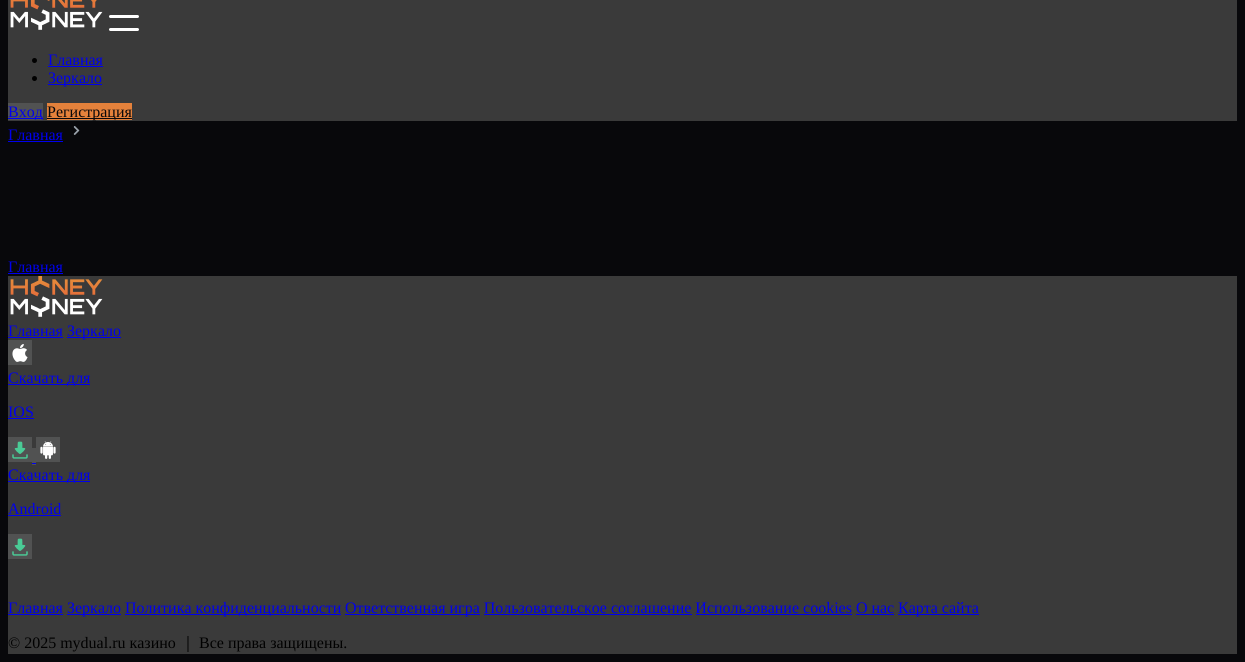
#include <cairo.h>
#include <math.h>
#include <stddef.h>


static void round_rect(cairo_t *cr, double x, double y, double w, double h, double r) {
    cairo_new_sub_path(cr);
    cairo_arc(cr, x + w - r, y + h - r, r, 0, M_PI / 2);
    cairo_arc(cr, x + r, y + h - r, r, M_PI / 2, M_PI);
    cairo_arc(cr, x + r, y + r, r, M_PI, 1.5 * M_PI);
    cairo_arc(cr, x + w - r, y + r, r, 1.5 * M_PI, 2 * M_PI);
    cairo_close_path(cr);
}

static void picture(cairo_t *cr, const char *path, double x, double y, double w, double h) {
    cairo_surface_t *image = cairo_image_surface_create_from_png(path);
    cairo_save(cr);
    cairo_set_source_surface(cr, image, x, y);
    cairo_rectangle(cr, x, y, w, h);
    cairo_fill(cr);
    cairo_restore(cr);
    cairo_surface_destroy(image);
}

int main(void) {
    cairo_surface_t *surface = cairo_image_surface_create(CAIRO_FORMAT_RGB24, 1245, 662);
    cairo_t *cr = cairo_create(surface);
    cairo_font_options_t *options = cairo_font_options_create();
    cairo_font_options_set_hint_metrics(options, CAIRO_HINT_METRICS_OFF);
    cairo_font_options_set_hint_style(options, CAIRO_HINT_STYLE_NONE);
    cairo_set_font_options(cr, options);
    cairo_set_miter_limit(cr, 4);
    cairo_set_source_rgb(cr, 0.035, 0.035, 0.043);
    cairo_paint(cr);
    cairo_set_source_rgb(cr, 0.227, 0.227, 0.227);
    cairo_rectangle(cr, 8, 0, 1229, 121);
    cairo_fill(cr);
    picture(cr, "img1.png", 10, 0, 93, 30);
    cairo_set_source_rgb(cr, 1, 1, 1);
    round_rect(cr, 109, 15, 30, 3, 1.5);
    cairo_fill(cr);
    round_rect(cr, 109, 28, 30, 3, 1.5);
    cairo_fill(cr);
    cairo_set_source_rgb(cr, 0, 0, 0);
    cairo_arc(cr, 34.5, 60.5, 2.5, 0, 2 * M_PI);
    cairo_fill(cr);
    cairo_select_font_face(cr, "Liberation Serif", CAIRO_FONT_SLANT_NORMAL, CAIRO_FONT_WEIGHT_NORMAL);
    cairo_set_font_size(cr, 16);
    cairo_set_source_rgb(cr, 0, 0, 0.933);
    cairo_move_to(cr, 48, 65);
    cairo_show_text(cr, "Главная");
    cairo_rectangle(cr, 48, 66, 55, 1);
    cairo_fill(cr);
    cairo_set_source_rgb(cr, 0, 0, 0);
    cairo_arc(cr, 34.5, 78.5, 2.5, 0, 2 * M_PI);
    cairo_fill(cr);
    cairo_set_source_rgb(cr, 0, 0, 0.933);
    cairo_rectangle(cr, 48, 84, 54, 1);
    cairo_fill(cr);
    cairo_move_to(cr, 48, 83);
    cairo_show_text(cr, "Зеркало");
    cairo_set_source_rgb(cr, 0.318, 0.322, 0.322);
    cairo_rectangle(cr, 8, 103, 35, 17);
    cairo_fill(cr);
    cairo_set_source_rgb(cr, 0, 0, 0.933);
    cairo_rectangle(cr, 8, 118, 35, 1);
    cairo_fill(cr);
    cairo_move_to(cr, 8, 117);
    cairo_show_text(cr, "Вход");
    cairo_set_source_rgb(cr, 0.894, 0.506, 0.231);
    cairo_rectangle(cr, 47, 103, 85, 17);
    cairo_fill(cr);
    cairo_set_source_rgb(cr, 0.035, 0.035, 0.043);
    cairo_rectangle(cr, 47, 118, 85, 1);
    cairo_fill(cr);
    cairo_move_to(cr, 47, 117);
    cairo_show_text(cr, "Регистрация");
    cairo_set_source_rgb(cr, 0, 0, 0.933);
    cairo_move_to(cr, 8, 140);
    cairo_show_text(cr, "Главная");
    cairo_rectangle(cr, 8, 141, 55, 1);
    cairo_fill(cr);
    picture(cr, "img2.png", 73, 126, 7, 9);
    cairo_move_to(cr, 8, 272);
    cairo_show_text(cr, "Главная");
    cairo_rectangle(cr, 8, 273, 55, 1);
    cairo_fill(cr);
    cairo_set_source_rgb(cr, 0.227, 0.227, 0.227);
    cairo_rectangle(cr, 8, 276, 1229, 378);
    cairo_fill(cr);
    picture(cr, "img3.png", 10, 276, 93, 41);
    cairo_set_source_rgb(cr, 0, 0, 0.933);
    cairo_move_to(cr, 8, 336);
    cairo_show_text(cr, "Главная");
    cairo_rectangle(cr, 8, 337, 55, 1);
    cairo_fill(cr);
    cairo_rectangle(cr, 67, 337, 54, 1);
    cairo_fill(cr);
    cairo_move_to(cr, 67, 336);
    cairo_show_text(cr, "Зеркало");
    cairo_set_source_rgb(cr, 0.318, 0.322, 0.322);
    cairo_rectangle(cr, 8, 340, 24, 25);
    cairo_fill(cr);
    cairo_rectangle(cr, 8, 437, 24, 25);
    cairo_fill(cr);
    cairo_rectangle(cr, 32, 448, 4, 17);
    cairo_fill(cr);
    picture(cr, "img4.png", 12, 344, 16, 18);
    cairo_set_source_rgb(cr, 0, 0, 0.933);
    cairo_rectangle(cr, 8, 384, 82, 1);
    cairo_fill(cr);
    cairo_move_to(cr, 8, 383);
    cairo_show_text(cr, "Скачать для");
    cairo_move_to(cr, 8, 417);
    cairo_show_text(cr, "IOS");
    cairo_rectangle(cr, 8, 418, 26, 1);
    cairo_fill(cr);
    picture(cr, "img5.png", 12, 441, 16, 18);
    cairo_rectangle(cr, 32, 463, 4, 1);
    cairo_fill(cr);
    cairo_set_source_rgb(cr, 0.318, 0.322, 0.322);
    cairo_rectangle(cr, 36, 437, 24, 25);
    cairo_fill(cr);
    cairo_rectangle(cr, 8, 534, 24, 25);
    cairo_fill(cr);
    picture(cr, "img6.png", 40, 441, 16, 18);
    cairo_set_source_rgb(cr, 0, 0, 0.933);
    cairo_rectangle(cr, 8, 481, 82, 1);
    cairo_fill(cr);
    cairo_move_to(cr, 8, 480);
    cairo_show_text(cr, "Скачать для");
    cairo_move_to(cr, 8, 514);
    cairo_show_text(cr, "Android");
    cairo_rectangle(cr, 8, 515, 53, 1);
    cairo_fill(cr);
    picture(cr, "img5.png", 12, 538, 16, 18);
    cairo_move_to(cr, 8, 613);
    cairo_show_text(cr, "Главная");
    cairo_rectangle(cr, 8, 614, 55, 1);
    cairo_fill(cr);
    cairo_rectangle(cr, 67, 614, 54, 1);
    cairo_fill(cr);
    cairo_move_to(cr, 67, 613);
    cairo_show_text(cr, "Зеркало");
    cairo_rectangle(cr, 125, 614, 216, 1);
    cairo_fill(cr);
    cairo_move_to(cr, 125, 613);
    cairo_show_text(cr, "Политика конфиденциальности");
    cairo_rectangle(cr, 345, 614, 135, 1);
    cairo_fill(cr);
    cairo_move_to(cr, 345, 613);
    cairo_show_text(cr, "Ответственная игра Пользовательское соглашение Использование cookies О нас");
    cairo_rectangle(cr, 898, 614, 81, 1);
    cairo_fill(cr);
    cairo_move_to(cr, 898, 613);
    cairo_show_text(cr, "Карта сайта");
    cairo_rectangle(cr, 484, 614, 208, 1);
    cairo_fill(cr);
    cairo_rectangle(cr, 696, 614, 156, 1);
    cairo_fill(cr);
    cairo_rectangle(cr, 856, 614, 38, 1);
    cairo_fill(cr);
    cairo_set_source_rgb(cr, 0, 0, 0);
    cairo_move_to(cr, 8, 648);
    cairo_show_text(cr, "© 2025 mydual.ru казино");
    cairo_select_font_face(cr, "WenQuanYi Zen Hei Medium", CAIRO_FONT_SLANT_NORMAL, CAIRO_FONT_WEIGHT_NORMAL);
    cairo_move_to(cr, 180, 648);
    cairo_show_text(cr, "｜");
    cairo_select_font_face(cr, "Liberation Serif", CAIRO_FONT_SLANT_NORMAL, CAIRO_FONT_WEIGHT_NORMAL);
    cairo_move_to(cr, 199, 648);
    cairo_show_text(cr, "Все права защищены.");
    cairo_surface_write_to_png(surface, "page.png");
    cairo_font_options_destroy(options);
    cairo_destroy(cr);
    cairo_surface_destroy(surface);
    return 0;
}
